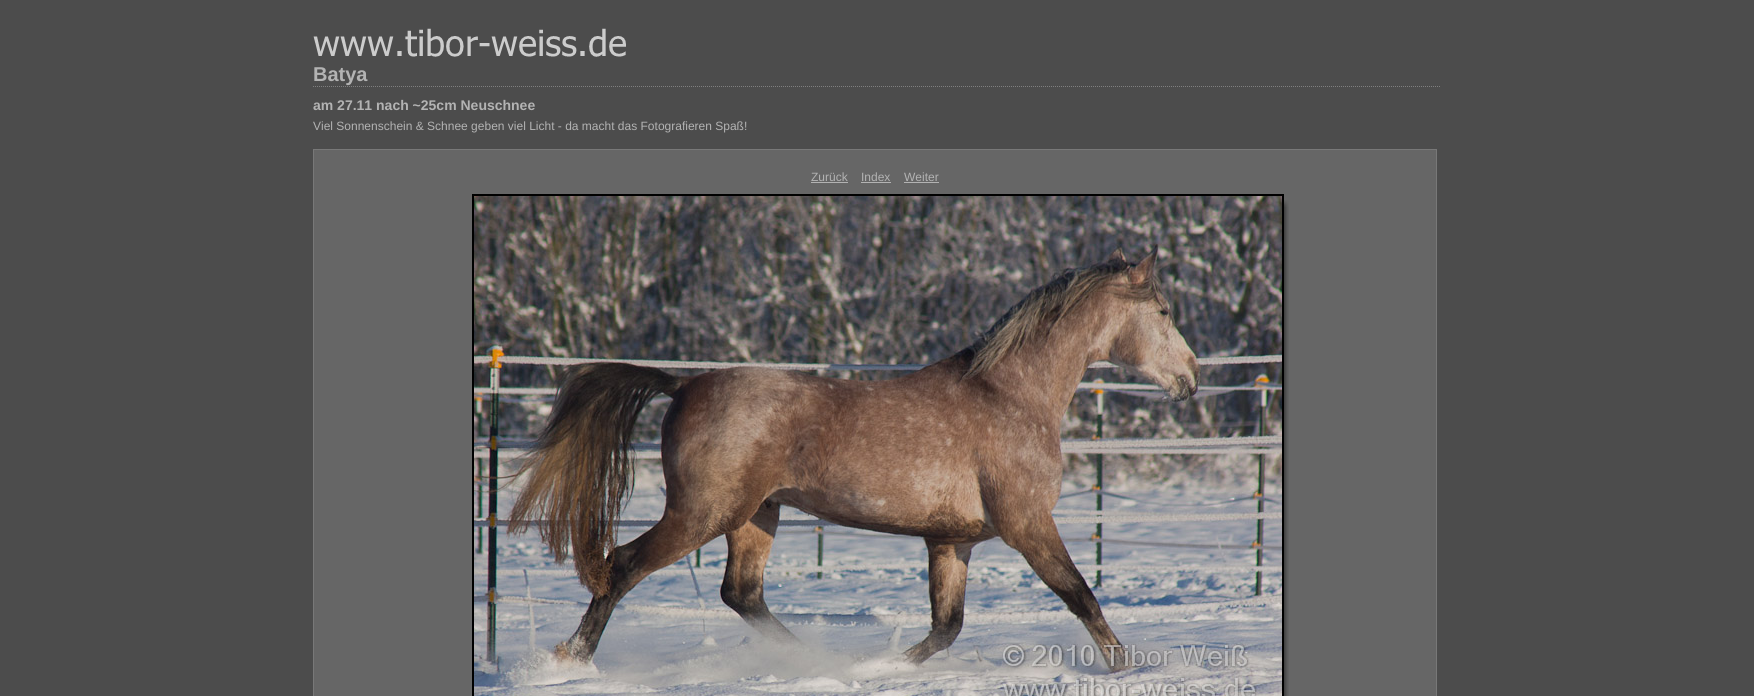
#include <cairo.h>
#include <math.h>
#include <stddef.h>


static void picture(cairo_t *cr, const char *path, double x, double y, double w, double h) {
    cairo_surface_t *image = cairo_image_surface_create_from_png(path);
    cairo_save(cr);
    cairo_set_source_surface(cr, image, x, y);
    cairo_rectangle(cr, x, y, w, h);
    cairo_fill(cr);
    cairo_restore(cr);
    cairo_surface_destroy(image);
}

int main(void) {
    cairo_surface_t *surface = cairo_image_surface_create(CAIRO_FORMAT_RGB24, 1754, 696);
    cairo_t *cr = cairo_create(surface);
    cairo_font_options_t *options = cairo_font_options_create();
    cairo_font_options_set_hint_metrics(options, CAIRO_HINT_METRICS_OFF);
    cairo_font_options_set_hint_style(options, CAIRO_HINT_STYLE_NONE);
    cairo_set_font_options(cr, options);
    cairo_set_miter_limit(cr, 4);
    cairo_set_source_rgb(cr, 0.298, 0.298, 0.298);
    cairo_paint(cr);
    picture(cr, "img1.png", 313, 28, 313, 29);
    cairo_new_path(cr);
    cairo_move_to(cr, 313, 86.5);
    cairo_line_to(cr, 1441, 86.5);
    cairo_set_source_rgb(cr, 0.498, 0.498, 0.498);
    cairo_set_line_width(cr, 1);
    cairo_set_dash(cr, (double[]){1, 1}, 2, 0);
    cairo_stroke(cr);
    cairo_select_font_face(cr, "Liberation Sans", CAIRO_FONT_SLANT_NORMAL, CAIRO_FONT_WEIGHT_BOLD);
    cairo_set_font_size(cr, 20);
    cairo_set_source_rgb(cr, 0.702, 0.702, 0.702);
    cairo_move_to(cr, 313, 81);
    cairo_show_text(cr, "Batya");
    cairo_set_font_size(cr, 14);
    cairo_move_to(cr, 313, 110);
    cairo_show_text(cr, "am 27.11 nach ~25cm Neuschnee");
    cairo_select_font_face(cr, "Liberation Sans", CAIRO_FONT_SLANT_NORMAL, CAIRO_FONT_WEIGHT_NORMAL);
    cairo_set_font_size(cr, 12);
    cairo_move_to(cr, 313, 130);
    cairo_show_text(cr, "Viel Sonnenschein & Schnee geben viel Licht - da macht das Fotografieren Spaß!");
    cairo_set_source_rgb(cr, 0.4, 0.4, 0.4);
    cairo_rectangle(cr, 313.5, 149.5, 1123, 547);
    cairo_fill_preserve(cr);
    cairo_set_source_rgb(cr, 0.471, 0.471, 0.471);
    cairo_set_dash(cr, NULL, 0, 0);
    cairo_stroke(cr);
    cairo_set_source_rgb(cr, 0.702, 0.702, 0.702);
    cairo_move_to(cr, 811, 181);
    cairo_show_text(cr, "Zurück");
    cairo_rectangle(cr, 811, 182, 37, 1);
    cairo_fill(cr);
    cairo_move_to(cr, 861, 181);
    cairo_show_text(cr, "Index");
    cairo_rectangle(cr, 861, 182, 30, 1);
    cairo_fill(cr);
    cairo_move_to(cr, 904, 181);
    cairo_show_text(cr, "Weiter");
    cairo_rectangle(cr, 904, 182, 35, 1);
    cairo_fill(cr);
    picture(cr, "img2.png", 1284, 207, 5, 489);
    cairo_rectangle(cr, 473, 195, 810, 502);
    cairo_set_source_rgb(cr, 0, 0, 0);
    cairo_set_line_width(cr, 2);
    cairo_stroke(cr);
    picture(cr, "img3.png", 474, 196, 808, 500);
    picture(cr, "img4.png", 1284, 200, 5, 7);
    cairo_surface_write_to_png(surface, "page.png");
    cairo_font_options_destroy(options);
    cairo_destroy(cr);
    cairo_surface_destroy(surface);
    return 0;
}
